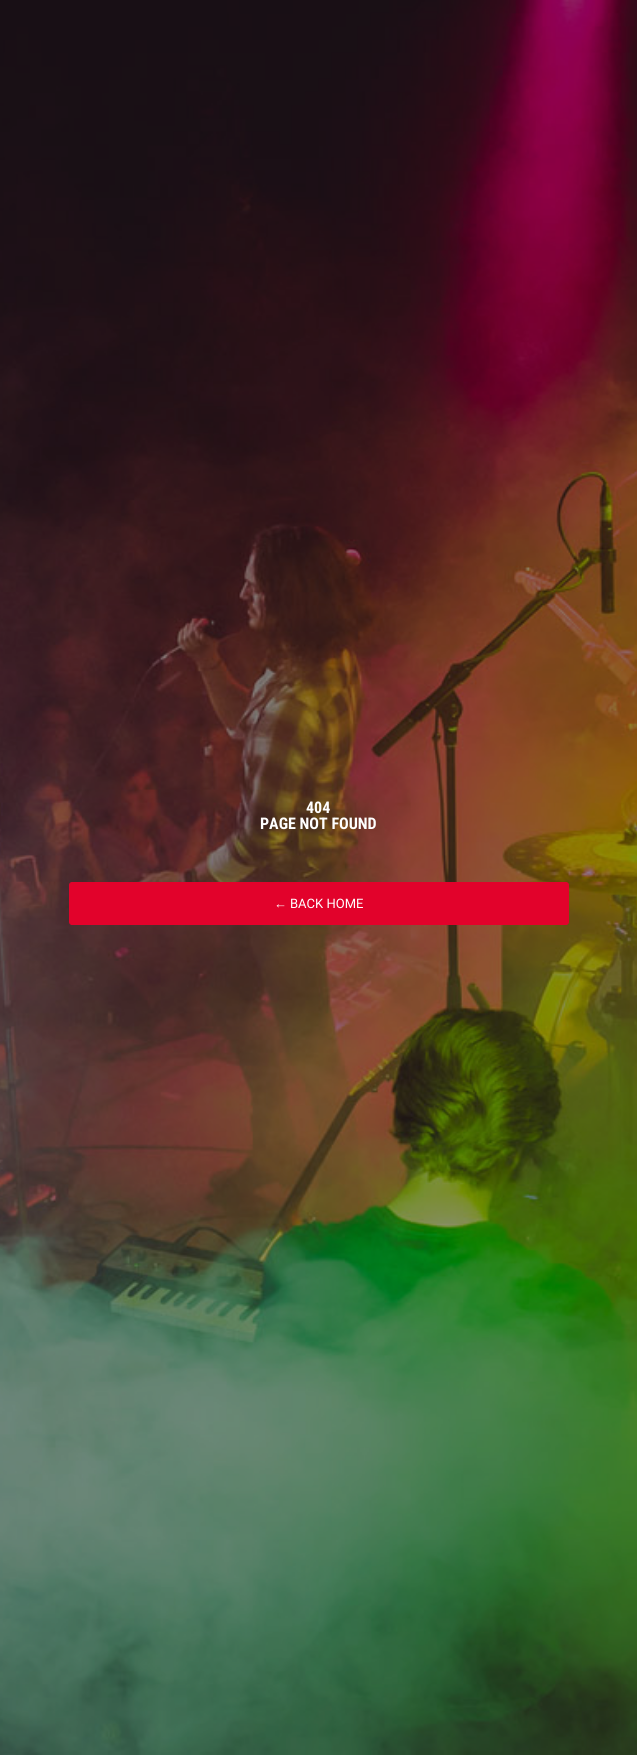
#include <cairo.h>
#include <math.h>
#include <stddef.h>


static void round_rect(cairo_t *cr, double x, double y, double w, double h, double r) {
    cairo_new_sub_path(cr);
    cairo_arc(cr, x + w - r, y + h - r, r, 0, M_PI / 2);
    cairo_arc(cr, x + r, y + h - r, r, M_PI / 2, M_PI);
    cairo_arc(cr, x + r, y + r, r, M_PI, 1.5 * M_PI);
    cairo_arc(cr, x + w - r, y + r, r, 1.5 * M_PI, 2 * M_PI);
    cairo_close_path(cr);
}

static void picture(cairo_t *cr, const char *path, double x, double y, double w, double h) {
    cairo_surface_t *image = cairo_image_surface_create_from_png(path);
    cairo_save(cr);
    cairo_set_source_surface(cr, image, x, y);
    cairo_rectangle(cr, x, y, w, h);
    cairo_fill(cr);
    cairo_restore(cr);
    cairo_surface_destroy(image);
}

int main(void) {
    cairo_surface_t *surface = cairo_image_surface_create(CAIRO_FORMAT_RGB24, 637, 1755);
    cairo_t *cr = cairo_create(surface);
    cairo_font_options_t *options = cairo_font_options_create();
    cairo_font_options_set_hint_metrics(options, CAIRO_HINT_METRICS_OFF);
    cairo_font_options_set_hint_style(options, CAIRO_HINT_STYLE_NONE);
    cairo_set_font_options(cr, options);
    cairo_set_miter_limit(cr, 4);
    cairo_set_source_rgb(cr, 1, 1, 1);
    cairo_paint(cr);
    picture(cr, "img1.png", 0, 0, 637, 1755);
    cairo_select_font_face(cr, "Roboto Condensed", CAIRO_FONT_SLANT_NORMAL, CAIRO_FONT_WEIGHT_BOLD);
    cairo_set_font_size(cr, 16);
    cairo_set_source_rgb(cr, 1, 1, 1);
    cairo_move_to(cr, 306, 813);
    cairo_show_text(cr, "404");
    cairo_move_to(cr, 260, 829);
    cairo_show_text(cr, "PAGE NOT FOUND");
    cairo_set_source_rgb(cr, 0.886, 0.008, 0.169);
    round_rect(cr, 69.5, 882.5, 499, 42, 2.5);
    cairo_fill_preserve(cr);
    cairo_set_line_width(cr, 1);
    cairo_stroke(cr);
    cairo_select_font_face(cr, "Liberation Serif", CAIRO_FONT_SLANT_NORMAL, CAIRO_FONT_WEIGHT_NORMAL);
    cairo_set_font_size(cr, 13);
    cairo_set_source_rgb(cr, 1, 1, 1);
    cairo_move_to(cr, 274, 908);
    cairo_show_text(cr, "←");
    cairo_select_font_face(cr, "Roboto", CAIRO_FONT_SLANT_NORMAL, CAIRO_FONT_WEIGHT_NORMAL);
    cairo_move_to(cr, 290, 908);
    cairo_show_text(cr, "BACK HOME");
    cairo_surface_write_to_png(surface, "page.png");
    cairo_font_options_destroy(options);
    cairo_destroy(cr);
    cairo_surface_destroy(surface);
    return 0;
}
